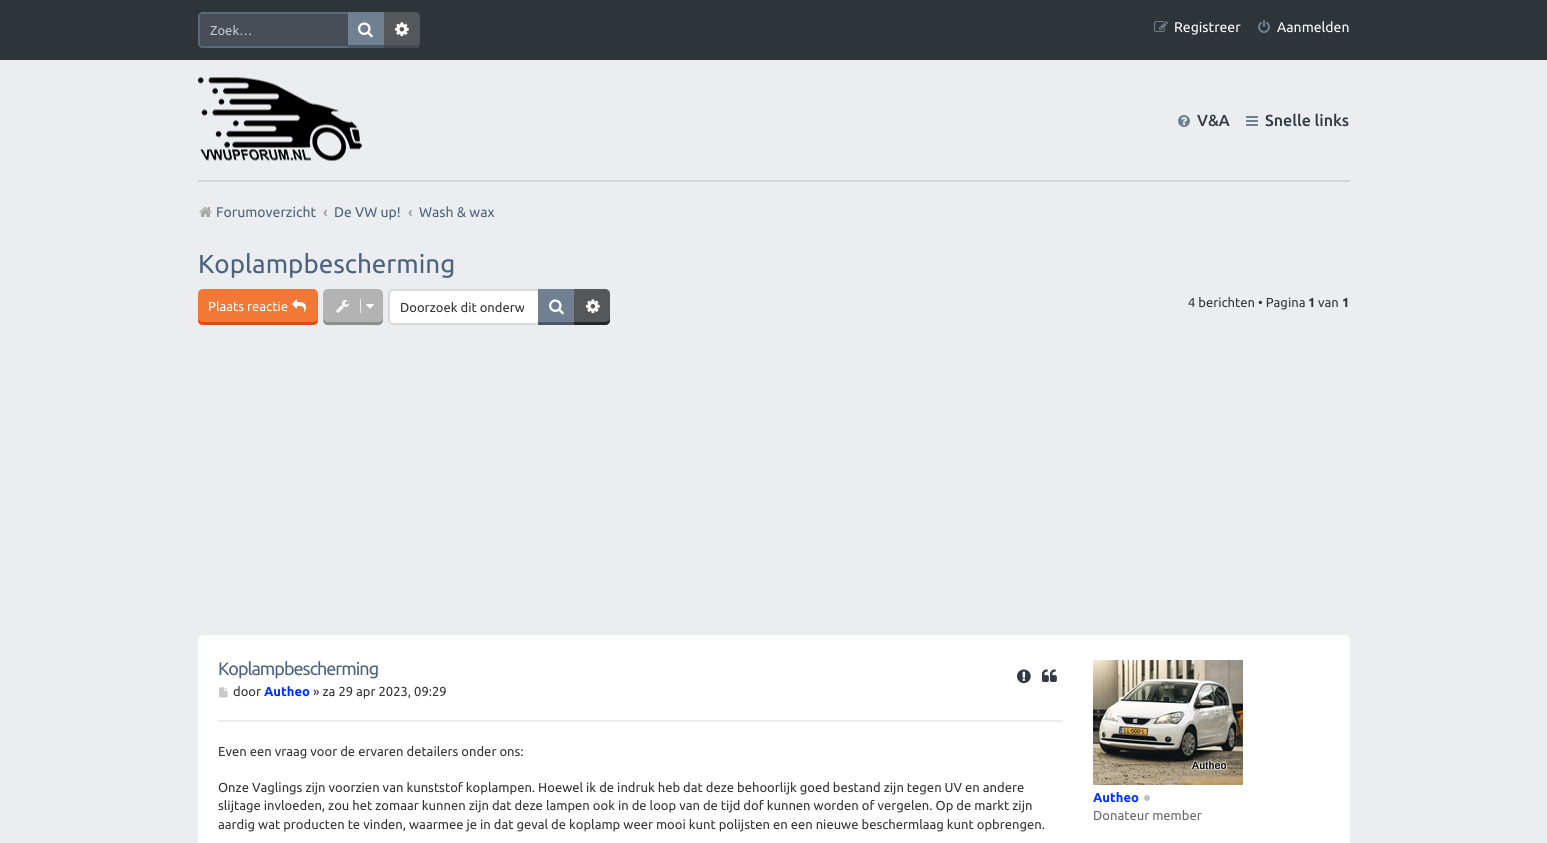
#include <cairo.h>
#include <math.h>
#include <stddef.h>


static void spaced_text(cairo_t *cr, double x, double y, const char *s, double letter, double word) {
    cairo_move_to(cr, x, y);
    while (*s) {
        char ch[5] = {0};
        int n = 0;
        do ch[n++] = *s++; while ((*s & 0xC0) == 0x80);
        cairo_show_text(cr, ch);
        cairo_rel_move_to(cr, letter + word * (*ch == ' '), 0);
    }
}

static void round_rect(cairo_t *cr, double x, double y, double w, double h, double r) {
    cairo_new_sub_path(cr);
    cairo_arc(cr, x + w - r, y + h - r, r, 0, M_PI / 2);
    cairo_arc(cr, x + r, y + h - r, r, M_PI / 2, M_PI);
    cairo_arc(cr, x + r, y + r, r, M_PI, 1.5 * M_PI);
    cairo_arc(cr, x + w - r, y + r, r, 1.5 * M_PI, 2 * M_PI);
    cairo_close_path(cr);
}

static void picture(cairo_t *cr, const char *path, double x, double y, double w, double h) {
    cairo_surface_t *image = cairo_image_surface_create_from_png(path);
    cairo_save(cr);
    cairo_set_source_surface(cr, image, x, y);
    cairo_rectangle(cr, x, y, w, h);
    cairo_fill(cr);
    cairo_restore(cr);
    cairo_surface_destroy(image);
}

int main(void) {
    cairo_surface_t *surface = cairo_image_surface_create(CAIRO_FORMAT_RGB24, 1547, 843);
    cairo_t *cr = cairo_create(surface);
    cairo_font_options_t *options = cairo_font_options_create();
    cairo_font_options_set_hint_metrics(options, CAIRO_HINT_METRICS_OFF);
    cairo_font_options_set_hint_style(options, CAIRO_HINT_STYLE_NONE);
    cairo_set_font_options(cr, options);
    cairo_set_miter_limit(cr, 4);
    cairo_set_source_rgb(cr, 0.918, 0.929, 0.945);
    cairo_paint(cr);
    cairo_set_source_rgb(cr, 0.18, 0.208, 0.224);
    cairo_rectangle(cr, 0, 0, 1547, 60);
    cairo_fill(cr);
    cairo_set_source_rgb(cr, 0.278, 0.306, 0.345);
    cairo_new_path(cr);
    cairo_move_to(cr, 203, 14);
    cairo_line_to(cr, 348, 14);
    cairo_line_to(cr, 348, 46);
    cairo_line_to(cr, 203, 46);
    cairo_curve_to(cr, 201.5, 46, 200, 44.5, 200, 43);
    cairo_line_to(cr, 200, 17);
    cairo_curve_to(cr, 200, 15.5, 201.5, 14, 203, 14);
    cairo_close_path(cr);
    cairo_fill(cr);
    cairo_set_source_rgb(cr, 0.353, 0.412, 0.49);
    cairo_set_fill_rule(cr, CAIRO_FILL_RULE_EVEN_ODD);
    cairo_new_path(cr);
    cairo_move_to(cr, 203, 12);
    cairo_line_to(cr, 348, 12);
    cairo_line_to(cr, 348, 48);
    cairo_line_to(cr, 203, 48);
    cairo_curve_to(cr, 200, 48, 198, 46, 198, 43);
    cairo_line_to(cr, 198, 17);
    cairo_curve_to(cr, 198, 14, 200, 12, 203, 12);
    cairo_close_path(cr);
    cairo_move_to(cr, 203, 14);
    cairo_line_to(cr, 348, 14);
    cairo_line_to(cr, 348, 46);
    cairo_line_to(cr, 203, 46);
    cairo_curve_to(cr, 201, 46, 200, 45, 200, 43);
    cairo_line_to(cr, 200, 17);
    cairo_curve_to(cr, 200, 15, 201, 14, 203, 14);
    cairo_close_path(cr);
    cairo_fill(cr);
    cairo_select_font_face(cr, "Ubuntu", CAIRO_FONT_SLANT_NORMAL, CAIRO_FONT_WEIGHT_NORMAL);
    cairo_set_font_size(cr, 13);
    cairo_set_source_rgb(cr, 0.784, 0.792, 0.804);
    cairo_move_to(cr, 210, 35);
    cairo_show_text(cr, "Zoek…");
    cairo_set_source_rgb(cr, 0.439, 0.502, 0.565);
    cairo_rectangle(cr, 348, 12, 36, 33);
    cairo_fill(cr);
    cairo_set_source_rgb(cr, 0.29, 0.345, 0.404);
    cairo_rectangle(cr, 348, 45, 36, 3);
    cairo_fill(cr);
    picture(cr, "img1.png", 358, 22, 15, 16);
    cairo_set_source_rgb(cr, 0.329, 0.345, 0.357);
    cairo_new_path(cr);
    cairo_move_to(cr, 384, 12);
    cairo_line_to(cr, 415, 12);
    cairo_curve_to(cr, 418, 12, 420, 14, 420, 17);
    cairo_line_to(cr, 420, 43);
    cairo_curve_to(cr, 420, 46, 418, 48, 415, 48);
    cairo_line_to(cr, 384, 48);
    cairo_close_path(cr);
    cairo_fill(cr);
    cairo_set_source_rgb(cr, 0.267, 0.29, 0.31);
    cairo_set_fill_rule(cr, CAIRO_FILL_RULE_WINDING);
    cairo_new_path(cr);
    cairo_move_to(cr, 384, 45);
    cairo_line_to(cr, 384, 48);
    cairo_line_to(cr, 415, 48);
    cairo_curve_to(cr, 418, 48, 420, 46, 420, 43);
    cairo_line_to(cr, 420, 40);
    cairo_curve_to(cr, 420, 43, 418, 45, 415, 45);
    cairo_close_path(cr);
    cairo_fill(cr);
    picture(cr, "img2.png", 395, 22, 14, 15);
    picture(cr, "img3.png", 1154, 21, 14, 11);
    cairo_set_font_size(cr, 14);
    cairo_set_source_rgb(cr, 1, 1, 1);
    cairo_move_to(cr, 1174, 32);
    cairo_show_text(cr, "Registreer");
    picture(cr, "img4.png", 1258, 20, 12, 13);
    cairo_move_to(cr, 1277, 32);
    cairo_show_text(cr, "Aanmelden");
    picture(cr, "img5.png", 198, 77, 164, 84);
    picture(cr, "img6.png", 1178, 115, 12, 12);
    cairo_select_font_face(cr, "Ubuntu Medium", CAIRO_FONT_SLANT_NORMAL, CAIRO_FONT_WEIGHT_NORMAL);
    cairo_set_font_size(cr, 16);
    cairo_set_source_rgb(cr, 0.196, 0.227, 0.271);
    cairo_move_to(cr, 1197, 126);
    cairo_show_text(cr, "V&A");
    picture(cr, "img7.png", 1246, 116, 12, 10);
    cairo_move_to(cr, 1265, 126);
    cairo_show_text(cr, "Snelle links");
    cairo_set_source_rgb(cr, 0.812, 0.843, 0.863);
    cairo_rectangle(cr, 198, 180, 1152, 2);
    cairo_fill(cr);
    picture(cr, "img8.png", 199, 207, 13, 10);
    cairo_select_font_face(cr, "Ubuntu", CAIRO_FONT_SLANT_NORMAL, CAIRO_FONT_WEIGHT_NORMAL);
    cairo_set_font_size(cr, 14);
    cairo_set_source_rgb(cr, 0.294, 0.388, 0.49);
    cairo_move_to(cr, 216, 217);
    cairo_show_text(cr, "Forumoverzicht");
    cairo_select_font_face(cr, "Ubuntu", CAIRO_FONT_SLANT_NORMAL, CAIRO_FONT_WEIGHT_BOLD);
    cairo_set_source_rgb(cr, 0.655, 0.655, 0.655);
    cairo_move_to(cr, 323, 217);
    cairo_show_text(cr, "‹");
    cairo_select_font_face(cr, "Ubuntu", CAIRO_FONT_SLANT_NORMAL, CAIRO_FONT_WEIGHT_NORMAL);
    cairo_set_source_rgb(cr, 0.294, 0.388, 0.49);
    cairo_move_to(cr, 334, 217);
    cairo_show_text(cr, "De VW up!");
    cairo_select_font_face(cr, "Ubuntu", CAIRO_FONT_SLANT_NORMAL, CAIRO_FONT_WEIGHT_BOLD);
    cairo_set_source_rgb(cr, 0.655, 0.655, 0.655);
    cairo_move_to(cr, 408, 217);
    cairo_show_text(cr, "‹");
    cairo_select_font_face(cr, "Ubuntu", CAIRO_FONT_SLANT_NORMAL, CAIRO_FONT_WEIGHT_NORMAL);
    cairo_set_source_rgb(cr, 0.294, 0.388, 0.49);
    cairo_move_to(cr, 419, 217);
    cairo_show_text(cr, "Wash & wax");
    cairo_set_font_size(cr, 26);
    cairo_move_to(cr, 198, 273);
    cairo_show_text(cr, "Koplampbescherming");
    cairo_set_source_rgb(cr, 0.949, 0.475, 0.208);
    round_rect(cr, 198, 289, 120, 36, 5);
    cairo_fill(cr);
    cairo_set_source_rgb(cr, 0.851, 0.31, 0.078);
    cairo_new_path(cr);
    cairo_move_to(cr, 198, 317);
    cairo_line_to(cr, 198, 320);
    cairo_curve_to(cr, 198, 323, 200, 325, 203, 325);
    cairo_line_to(cr, 313, 325);
    cairo_curve_to(cr, 316, 325, 318, 323, 318, 320);
    cairo_line_to(cr, 318, 317);
    cairo_curve_to(cr, 318, 320, 316, 322, 313, 322);
    cairo_line_to(cr, 203, 322);
    cairo_curve_to(cr, 200, 322, 198, 320, 198, 317);
    cairo_close_path(cr);
    cairo_fill(cr);
    cairo_set_font_size(cr, 13);
    cairo_set_source_rgb(cr, 1, 1, 1);
    cairo_move_to(cr, 208, 311);
    cairo_show_text(cr, "Plaats reactie");
    picture(cr, "img9.png", 292, 299, 14, 13);
    cairo_set_source_rgb(cr, 0.702, 0.702, 0.702);
    round_rect(cr, 323, 289, 60, 36, 5);
    cairo_fill(cr);
    cairo_set_source_rgb(cr, 0.561, 0.561, 0.561);
    cairo_new_path(cr);
    cairo_move_to(cr, 323, 317);
    cairo_curve_to(cr, 323, 327, 327, 325, 336, 325);
    cairo_line_to(cr, 370, 325);
    cairo_curve_to(cr, 379, 325, 383, 327, 383, 317);
    cairo_curve_to(cr, 383, 320, 381, 322, 378, 322);
    cairo_line_to(cr, 328, 322);
    cairo_curve_to(cr, 325, 322, 323, 320, 323, 317);
    cairo_close_path(cr);
    cairo_fill(cr);
    picture(cr, "img10.png", 336, 300, 13, 13);
    cairo_set_source_rgb(cr, 0.918, 0.918, 0.918);
    cairo_rectangle(cr, 360, 299, 1, 14);
    cairo_fill(cr);
    picture(cr, "img11.png", 366, 304, 8, 5);
    cairo_set_source_rgb(cr, 1, 1, 1);
    cairo_new_path(cr);
    cairo_move_to(cr, 393, 291);
    cairo_line_to(cr, 538, 291);
    cairo_line_to(cr, 538, 323);
    cairo_line_to(cr, 393, 323);
    cairo_curve_to(cr, 391.5, 323, 390, 321.5, 390, 320);
    cairo_line_to(cr, 390, 294);
    cairo_curve_to(cr, 390, 292.5, 391.5, 291, 393, 291);
    cairo_close_path(cr);
    cairo_fill(cr);
    cairo_set_source_rgb(cr, 0.855, 0.855, 0.855);
    cairo_set_fill_rule(cr, CAIRO_FILL_RULE_EVEN_ODD);
    cairo_new_path(cr);
    cairo_move_to(cr, 393, 289);
    cairo_line_to(cr, 538, 289);
    cairo_line_to(cr, 538, 325);
    cairo_line_to(cr, 393, 325);
    cairo_curve_to(cr, 390, 325, 388, 323, 388, 320);
    cairo_line_to(cr, 388, 294);
    cairo_curve_to(cr, 388, 291, 390, 289, 393, 289);
    cairo_close_path(cr);
    cairo_move_to(cr, 393, 291);
    cairo_line_to(cr, 538, 291);
    cairo_line_to(cr, 538, 323);
    cairo_line_to(cr, 393, 323);
    cairo_curve_to(cr, 391, 323, 390, 322, 390, 320);
    cairo_line_to(cr, 390, 294);
    cairo_curve_to(cr, 390, 292, 391, 291, 393, 291);
    cairo_close_path(cr);
    cairo_fill(cr);
    cairo_save(cr);
    cairo_set_fill_rule(cr, CAIRO_FILL_RULE_WINDING);
    cairo_rectangle(cr, 400, 300, 124, 14);
    cairo_clip(cr);
    cairo_set_source_rgb(cr, 0.2, 0.2, 0.2);
    cairo_move_to(cr, 400, 312);
    cairo_show_text(cr, "Doorzoek dit onderw");
    cairo_restore(cr);
    cairo_set_source_rgb(cr, 0.439, 0.502, 0.565);
    cairo_rectangle(cr, 538, 289, 36, 33);
    cairo_fill(cr);
    cairo_set_source_rgb(cr, 0.29, 0.345, 0.404);
    cairo_rectangle(cr, 538, 322, 36, 3);
    cairo_fill(cr);
    picture(cr, "img1.png", 549, 299, 15, 16);
    cairo_set_source_rgb(cr, 0.329, 0.345, 0.357);
    cairo_new_path(cr);
    cairo_move_to(cr, 574, 289);
    cairo_line_to(cr, 605, 289);
    cairo_curve_to(cr, 608, 289, 610, 291, 610, 294);
    cairo_line_to(cr, 610, 320);
    cairo_curve_to(cr, 610, 323, 608, 325, 605, 325);
    cairo_line_to(cr, 574, 325);
    cairo_close_path(cr);
    cairo_fill(cr);
    cairo_set_source_rgb(cr, 0.129, 0.149, 0.165);
    cairo_set_fill_rule(cr, CAIRO_FILL_RULE_WINDING);
    cairo_new_path(cr);
    cairo_move_to(cr, 574, 322);
    cairo_line_to(cr, 574, 325);
    cairo_line_to(cr, 605, 325);
    cairo_curve_to(cr, 608, 325, 610, 323, 610, 320);
    cairo_line_to(cr, 610, 317);
    cairo_curve_to(cr, 610, 320, 608, 322, 605, 322);
    cairo_close_path(cr);
    cairo_fill(cr);
    picture(cr, "img2.png", 586, 299, 14, 15);
    cairo_set_source_rgb(cr, 0.2, 0.2, 0.2);
    cairo_move_to(cr, 1188, 307);
    cairo_show_text(cr, "4 berichten • Pagina");
    cairo_select_font_face(cr, "Ubuntu", CAIRO_FONT_SLANT_NORMAL, CAIRO_FONT_WEIGHT_BOLD);
    cairo_move_to(cr, 1308, 307);
    cairo_show_text(cr, "1");
    cairo_select_font_face(cr, "Ubuntu", CAIRO_FONT_SLANT_NORMAL, CAIRO_FONT_WEIGHT_NORMAL);
    cairo_move_to(cr, 1318, 307);
    cairo_show_text(cr, "van");
    cairo_select_font_face(cr, "Ubuntu", CAIRO_FONT_SLANT_NORMAL, CAIRO_FONT_WEIGHT_BOLD);
    cairo_move_to(cr, 1342, 307);
    cairo_show_text(cr, "1");
    cairo_set_source_rgb(cr, 1, 1, 1);
    round_rect(cr, 198, 635, 1152, 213, 5);
    cairo_fill(cr);
    cairo_select_font_face(cr, "Ubuntu", CAIRO_FONT_SLANT_NORMAL, CAIRO_FONT_WEIGHT_NORMAL);
    cairo_set_font_size(cr, 18);
    cairo_set_source_rgb(cr, 0.294, 0.388, 0.49);
    spaced_text(cr, 218, 675, "Koplampbescherming", -1, 0);
    picture(cr, "img12.png", 1017, 669, 14, 15);
    picture(cr, "img13.png", 1042, 669, 15, 13);
    picture(cr, "img14.png", 219, 687, 9, 11);
    cairo_set_font_size(cr, 13);
    cairo_set_source_rgb(cr, 0.2, 0.2, 0.2);
    cairo_move_to(cr, 233, 696);
    cairo_show_text(cr, "door");
    cairo_select_font_face(cr, "Ubuntu", CAIRO_FONT_SLANT_NORMAL, CAIRO_FONT_WEIGHT_BOLD);
    cairo_set_source_rgb(cr, 0, 0.2, 1);
    cairo_move_to(cr, 264, 696);
    cairo_show_text(cr, "Autheo");
    cairo_select_font_face(cr, "Ubuntu", CAIRO_FONT_SLANT_NORMAL, CAIRO_FONT_WEIGHT_NORMAL);
    cairo_set_source_rgb(cr, 0.2, 0.2, 0.2);
    cairo_move_to(cr, 313, 696);
    cairo_show_text(cr, "» za 29 apr 2023, 09:29");
    cairo_set_source_rgb(cr, 0.922, 0.922, 0.922);
    cairo_rectangle(cr, 218, 720, 845, 2);
    cairo_fill(cr);
    cairo_set_source_rgb(cr, 0.2, 0.2, 0.2);
    cairo_move_to(cr, 218, 756);
    cairo_show_text(cr, "Even een vraag voor de ervaren detailers onder ons:");
    cairo_move_to(cr, 218, 792);
    cairo_show_text(cr, "Onze Vaglings zijn voorzien van kunststof koplampen. Hoewel ik de indruk heb dat deze behoorlijk goed bestand zijn tegen UV en andere");
    cairo_move_to(cr, 218, 810);
    cairo_show_text(cr, "slijtage invloeden, zou het zomaar kunnen zijn dat deze lampen ook in de loop van de tijd dof kunnen worden of vergelen. Op de markt zijn");
    cairo_move_to(cr, 218, 829);
    cairo_show_text(cr, "aardig wat producten te vinden, waarmee je in dat geval de koplamp weer mooi kunt polijsten en een nieuwe beschermlaag kunt opbrengen.");
    picture(cr, "img15.png", 1093, 660, 150, 125);
    cairo_select_font_face(cr, "Ubuntu", CAIRO_FONT_SLANT_NORMAL, CAIRO_FONT_WEIGHT_BOLD);
    cairo_set_source_rgb(cr, 0, 0.2, 1);
    cairo_move_to(cr, 1093, 802);
    cairo_show_text(cr, "Autheo");
    cairo_set_source_rgb(cr, 0.757, 0.757, 0.757);
    cairo_new_path(cr);
    cairo_arc(cr, 1147, 798, 3, 0, 2 * M_PI);
    cairo_fill(cr);
    cairo_select_font_face(cr, "Ubuntu", CAIRO_FONT_SLANT_NORMAL, CAIRO_FONT_WEIGHT_NORMAL);
    cairo_set_source_rgb(cr, 0.4, 0.4, 0.4);
    cairo_move_to(cr, 1093, 820);
    cairo_show_text(cr, "Donateur member");
    cairo_surface_write_to_png(surface, "page.png");
    cairo_font_options_destroy(options);
    cairo_destroy(cr);
    cairo_surface_destroy(surface);
    return 0;
}
